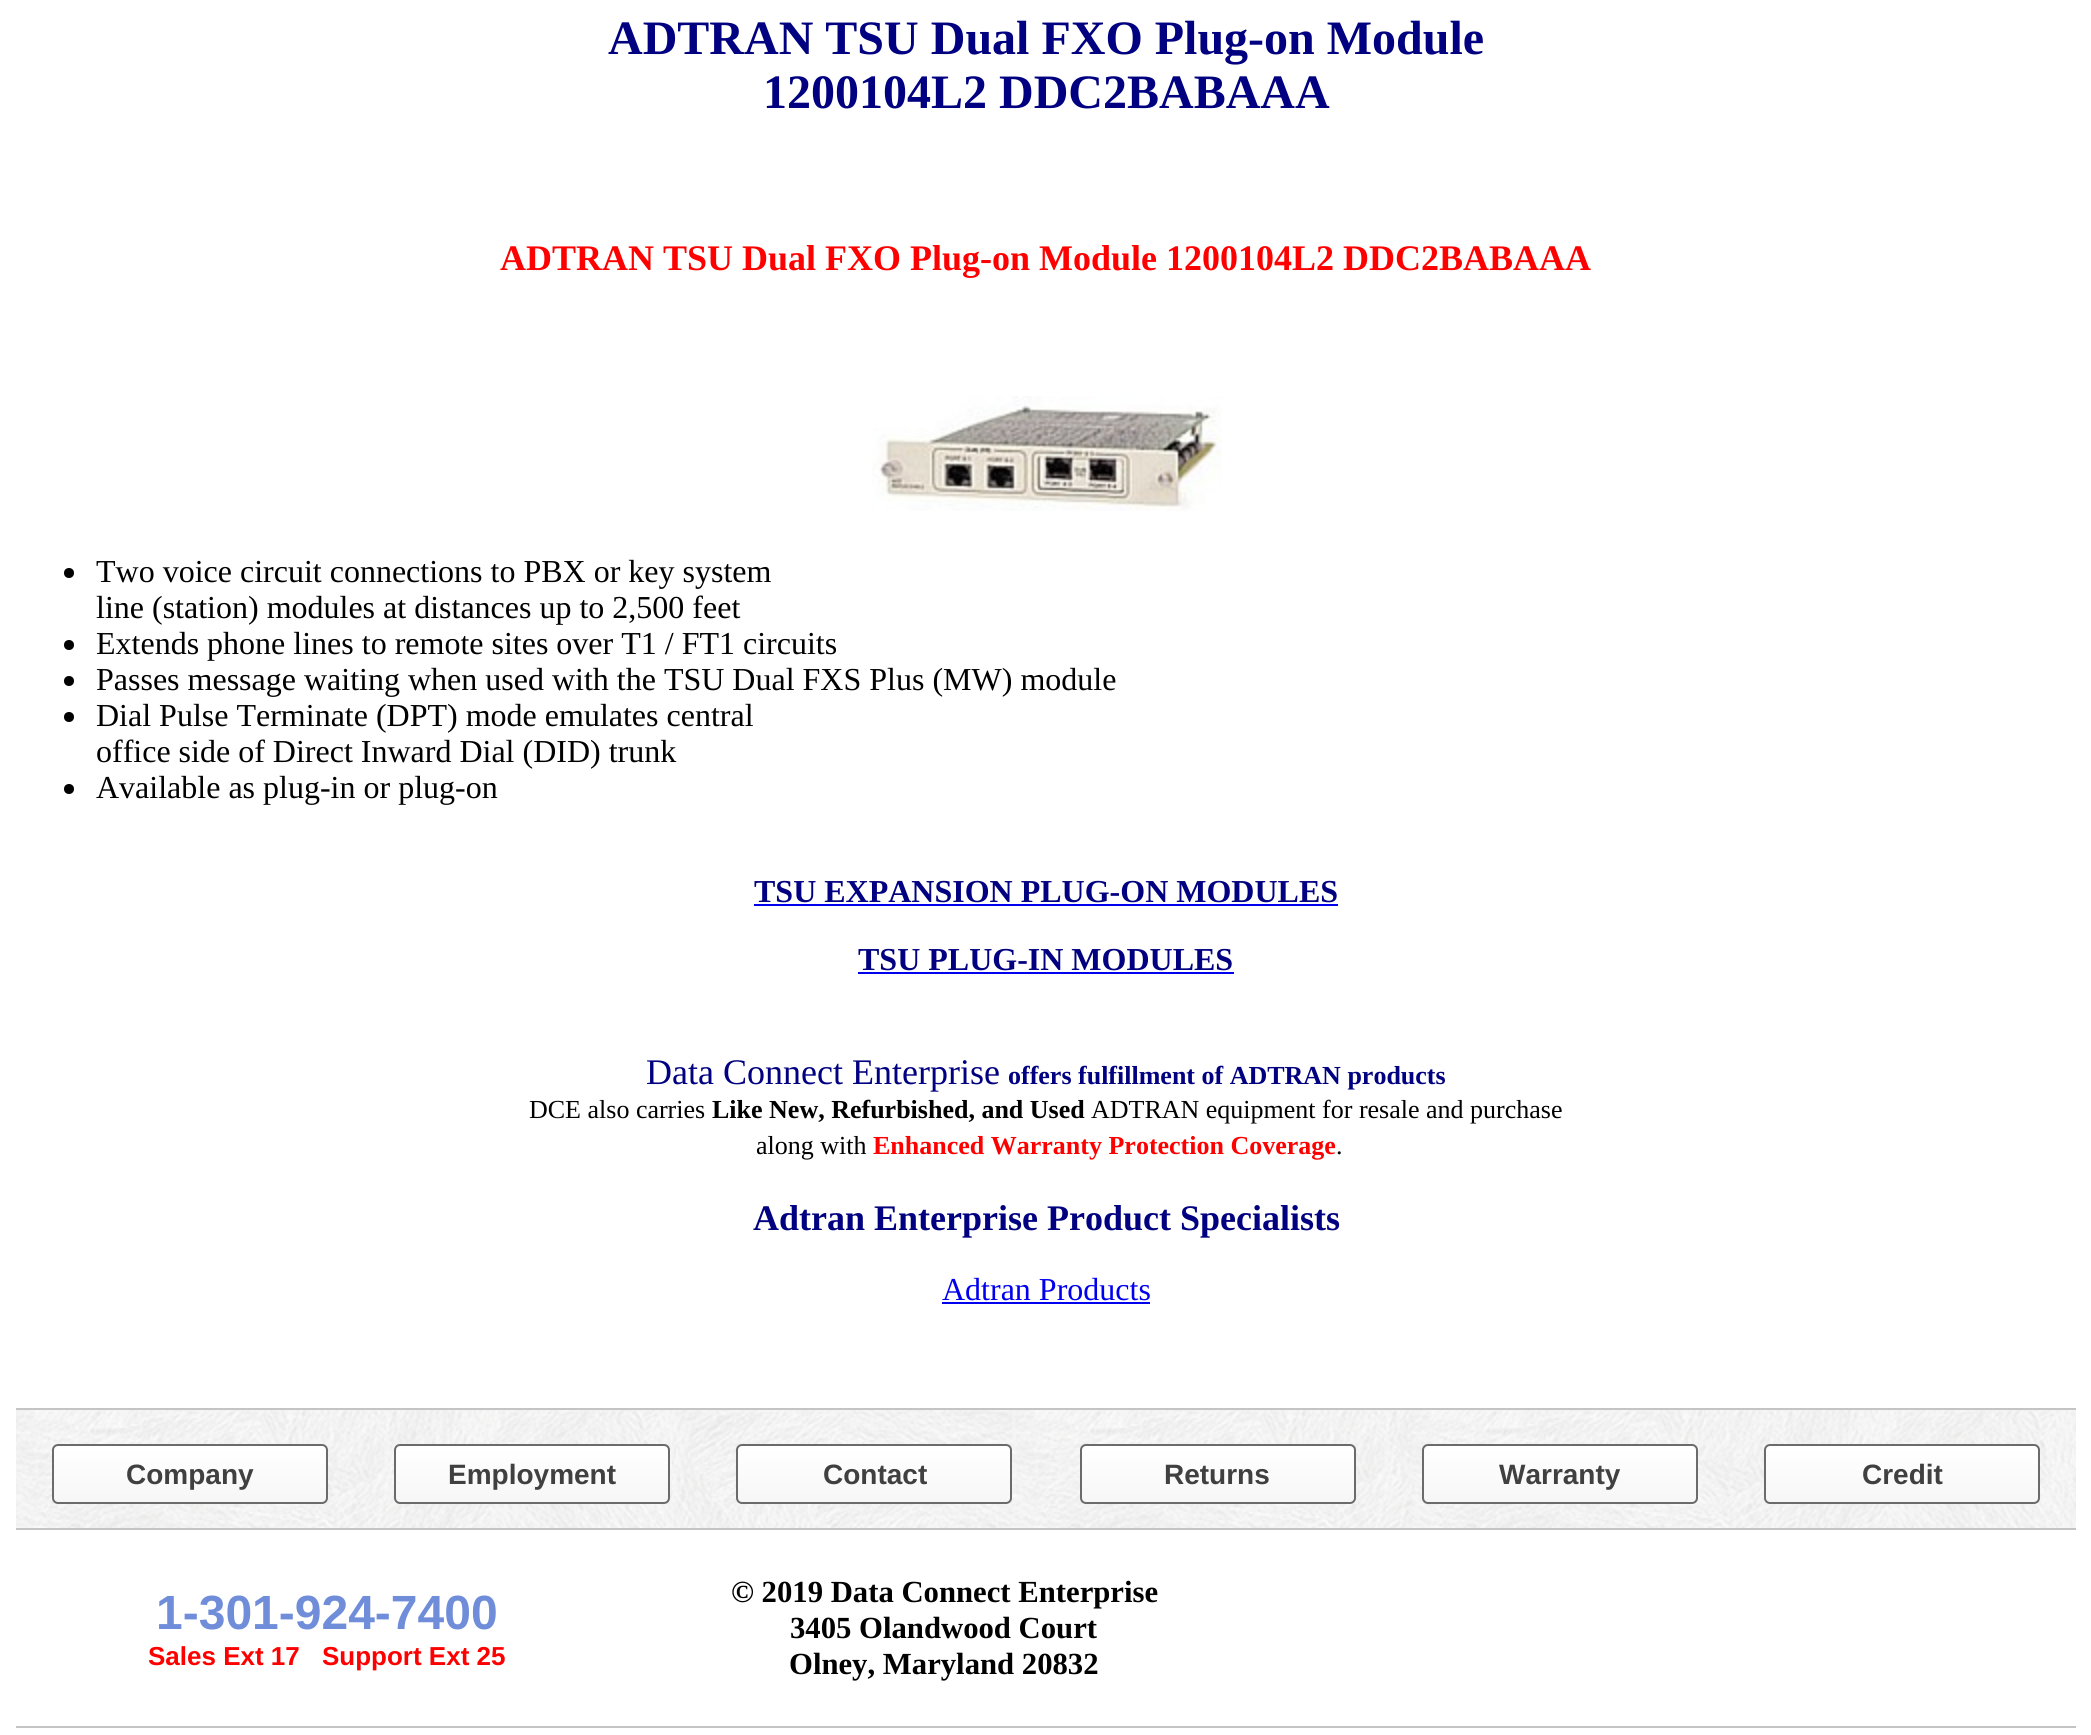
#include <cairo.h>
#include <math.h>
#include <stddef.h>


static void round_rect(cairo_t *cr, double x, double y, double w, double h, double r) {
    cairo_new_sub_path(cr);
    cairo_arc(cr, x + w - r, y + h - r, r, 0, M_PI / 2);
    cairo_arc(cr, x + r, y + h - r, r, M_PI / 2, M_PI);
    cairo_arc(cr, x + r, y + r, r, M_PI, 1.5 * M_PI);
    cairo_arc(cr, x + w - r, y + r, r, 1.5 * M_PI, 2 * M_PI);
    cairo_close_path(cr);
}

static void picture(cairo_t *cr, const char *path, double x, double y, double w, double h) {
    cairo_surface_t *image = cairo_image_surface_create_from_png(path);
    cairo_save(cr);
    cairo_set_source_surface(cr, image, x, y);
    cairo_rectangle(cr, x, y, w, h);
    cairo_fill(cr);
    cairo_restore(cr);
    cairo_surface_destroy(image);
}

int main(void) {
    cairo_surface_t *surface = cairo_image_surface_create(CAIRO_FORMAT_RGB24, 2091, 1735);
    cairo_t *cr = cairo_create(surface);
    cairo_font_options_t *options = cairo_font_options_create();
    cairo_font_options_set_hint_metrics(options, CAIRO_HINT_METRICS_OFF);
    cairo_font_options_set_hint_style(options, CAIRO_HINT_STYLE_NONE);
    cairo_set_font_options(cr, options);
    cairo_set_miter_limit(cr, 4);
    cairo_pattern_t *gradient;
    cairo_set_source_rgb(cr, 1, 1, 1);
    cairo_paint(cr);
    cairo_select_font_face(cr, "Liberation Serif", CAIRO_FONT_SLANT_NORMAL, CAIRO_FONT_WEIGHT_BOLD);
    cairo_set_font_size(cr, 48);
    cairo_set_source_rgb(cr, 0, 0, 0.502);
    cairo_move_to(cr, 608, 54);
    cairo_show_text(cr, "ADTRAN TSU Dual FXO Plug-on Module");
    cairo_move_to(cr, 763, 108);
    cairo_show_text(cr, "1200104L2 DDC2BABAAA");
    cairo_set_font_size(cr, 36);
    cairo_set_source_rgb(cr, 1, 0, 0);
    cairo_move_to(cr, 500, 270);
    cairo_show_text(cr, "ADTRAN TSU Dual FXO Plug-on Module 1200104L2 DDC2BABAAA");
    picture(cr, "img1.png", 872, 396, 350, 115);
    cairo_set_source_rgb(cr, 0, 0, 0);
    cairo_arc(cr, 69, 573, 5, 0, 2 * M_PI);
    cairo_fill(cr);
    cairo_select_font_face(cr, "Liberation Serif", CAIRO_FONT_SLANT_NORMAL, CAIRO_FONT_WEIGHT_NORMAL);
    cairo_set_font_size(cr, 32);
    cairo_move_to(cr, 96, 582);
    cairo_show_text(cr, "Two voice circuit connections to PBX or key system");
    cairo_move_to(cr, 96, 618);
    cairo_show_text(cr, "line (station) modules at distances up to 2,500 feet");
    cairo_new_path(cr);
    cairo_arc(cr, 69, 645, 5, 0, 2 * M_PI);
    cairo_fill(cr);
    cairo_move_to(cr, 96, 654);
    cairo_show_text(cr, "Extends phone lines to remote sites over T1 / FT1 circuits");
    cairo_new_path(cr);
    cairo_arc(cr, 69, 681, 5, 0, 2 * M_PI);
    cairo_fill(cr);
    cairo_move_to(cr, 96, 690);
    cairo_show_text(cr, "Passes message waiting when used with the TSU Dual FXS Plus (MW) module");
    cairo_new_path(cr);
    cairo_arc(cr, 69, 717, 5, 0, 2 * M_PI);
    cairo_fill(cr);
    cairo_move_to(cr, 96, 726);
    cairo_show_text(cr, "Dial Pulse Terminate (DPT) mode emulates central");
    cairo_move_to(cr, 96, 762);
    cairo_show_text(cr, "office side of Direct Inward Dial (DID) trunk");
    cairo_new_path(cr);
    cairo_arc(cr, 69, 789, 5, 0, 2 * M_PI);
    cairo_fill(cr);
    cairo_move_to(cr, 96, 798);
    cairo_show_text(cr, "Available as plug-in or plug-on");
    cairo_select_font_face(cr, "Liberation Serif", CAIRO_FONT_SLANT_NORMAL, CAIRO_FONT_WEIGHT_BOLD);
    cairo_set_source_rgb(cr, 0, 0, 0.502);
    cairo_move_to(cr, 754, 902);
    cairo_show_text(cr, "TSU EXPANSION PLUG-ON MODULES");
    cairo_set_source_rgb(cr, 0, 0, 0.933);
    cairo_rectangle(cr, 754, 904, 584, 2);
    cairo_fill(cr);
    cairo_set_source_rgb(cr, 0, 0, 0.502);
    cairo_move_to(cr, 858, 970);
    cairo_show_text(cr, "TSU PLUG-IN MODULES");
    cairo_set_source_rgb(cr, 0, 0, 0.933);
    cairo_rectangle(cr, 858, 972, 376, 2);
    cairo_fill(cr);
    cairo_select_font_face(cr, "Liberation Serif", CAIRO_FONT_SLANT_NORMAL, CAIRO_FONT_WEIGHT_NORMAL);
    cairo_set_font_size(cr, 36);
    cairo_set_source_rgb(cr, 0, 0, 0.502);
    cairo_move_to(cr, 646, 1084);
    cairo_show_text(cr, "Data Connect Enterprise");
    cairo_select_font_face(cr, "Liberation Serif", CAIRO_FONT_SLANT_NORMAL, CAIRO_FONT_WEIGHT_BOLD);
    cairo_set_font_size(cr, 26);
    cairo_move_to(cr, 1008, 1084);
    cairo_show_text(cr, "offers fulfillment of ADTRAN products");
    cairo_select_font_face(cr, "Liberation Serif", CAIRO_FONT_SLANT_NORMAL, CAIRO_FONT_WEIGHT_NORMAL);
    cairo_set_source_rgb(cr, 0, 0, 0);
    cairo_move_to(cr, 529, 1118);
    cairo_show_text(cr, "DCE also carries");
    cairo_select_font_face(cr, "Liberation Serif", CAIRO_FONT_SLANT_NORMAL, CAIRO_FONT_WEIGHT_BOLD);
    cairo_move_to(cr, 712, 1118);
    cairo_show_text(cr, "Like New, Refurbished, and Used");
    cairo_select_font_face(cr, "Liberation Serif", CAIRO_FONT_SLANT_NORMAL, CAIRO_FONT_WEIGHT_NORMAL);
    cairo_move_to(cr, 1091, 1118);
    cairo_show_text(cr, "ADTRAN equipment for resale and purchase");
    cairo_move_to(cr, 756, 1154);
    cairo_show_text(cr, "along with");
    cairo_select_font_face(cr, "Liberation Serif", CAIRO_FONT_SLANT_NORMAL, CAIRO_FONT_WEIGHT_BOLD);
    cairo_set_source_rgb(cr, 1, 0, 0);
    cairo_move_to(cr, 873, 1154);
    cairo_show_text(cr, "Enhanced Warranty Protection Coverage");
    cairo_select_font_face(cr, "Liberation Serif", CAIRO_FONT_SLANT_NORMAL, CAIRO_FONT_WEIGHT_NORMAL);
    cairo_set_source_rgb(cr, 0, 0, 0);
    cairo_move_to(cr, 1336, 1154);
    cairo_show_text(cr, ".");
    cairo_select_font_face(cr, "Liberation Serif", CAIRO_FONT_SLANT_NORMAL, CAIRO_FONT_WEIGHT_BOLD);
    cairo_set_font_size(cr, 36);
    cairo_set_source_rgb(cr, 0, 0, 0.502);
    cairo_move_to(cr, 753, 1230);
    cairo_show_text(cr, "Adtran Enterprise Product Specialists");
    cairo_select_font_face(cr, "Liberation Serif", CAIRO_FONT_SLANT_NORMAL, CAIRO_FONT_WEIGHT_NORMAL);
    cairo_set_font_size(cr, 32);
    cairo_set_source_rgb(cr, 0, 0, 0.933);
    cairo_move_to(cr, 942, 1300);
    cairo_show_text(cr, "Adtran Products");
    cairo_rectangle(cr, 942, 1302, 208, 2);
    cairo_fill(cr);
    picture(cr, "img2.png", 16, 1410, 2060, 118);
    cairo_set_source_rgb(cr, 0.769, 0.769, 0.769);
    cairo_rectangle(cr, 16, 1408, 2060, 2);
    cairo_fill(cr);
    cairo_save(cr);
    round_rect(cr, 52, 1444, 276, 60, 6);
    cairo_clip(cr);
    gradient = cairo_pattern_create_linear(190, 1446, 190, 1502);
    cairo_pattern_add_color_stop_rgba(gradient, 0.05, 1, 1, 1, 1);
    cairo_pattern_add_color_stop_rgba(gradient, 1, 0.965, 0.965, 0.965, 1);
    cairo_set_source(cr, gradient);
    cairo_pattern_destroy(gradient);
    cairo_rectangle(cr, 52, 1446, 276, 56);
    cairo_fill(cr);
    cairo_restore(cr);
    round_rect(cr, 53, 1445, 274, 58, 5);
    cairo_set_source_rgb(cr, 0.42, 0.42, 0.42);
    cairo_stroke(cr);
    cairo_select_font_face(cr, "Liberation Sans", CAIRO_FONT_SLANT_NORMAL, CAIRO_FONT_WEIGHT_BOLD);
    cairo_set_font_size(cr, 28);
    cairo_set_source_rgb(cr, 0.251, 0.251, 0.251);
    cairo_move_to(cr, 126, 1484);
    cairo_show_text(cr, "Company");
    cairo_save(cr);
    round_rect(cr, 394, 1444, 276, 60, 6);
    cairo_clip(cr);
    gradient = cairo_pattern_create_linear(532, 1446, 532, 1502);
    cairo_pattern_add_color_stop_rgba(gradient, 0.05, 1, 1, 1, 1);
    cairo_pattern_add_color_stop_rgba(gradient, 1, 0.965, 0.965, 0.965, 1);
    cairo_set_source(cr, gradient);
    cairo_pattern_destroy(gradient);
    cairo_rectangle(cr, 394, 1446, 276, 56);
    cairo_fill(cr);
    cairo_restore(cr);
    round_rect(cr, 395, 1445, 274, 58, 5);
    cairo_set_source_rgb(cr, 0.42, 0.42, 0.42);
    cairo_stroke(cr);
    cairo_set_source_rgb(cr, 0.251, 0.251, 0.251);
    cairo_move_to(cr, 448, 1484);
    cairo_show_text(cr, "Employment");
    cairo_save(cr);
    round_rect(cr, 736, 1444, 276, 60, 6);
    cairo_clip(cr);
    gradient = cairo_pattern_create_linear(874, 1446, 874, 1502);
    cairo_pattern_add_color_stop_rgba(gradient, 0.05, 1, 1, 1, 1);
    cairo_pattern_add_color_stop_rgba(gradient, 1, 0.965, 0.965, 0.965, 1);
    cairo_set_source(cr, gradient);
    cairo_pattern_destroy(gradient);
    cairo_rectangle(cr, 736, 1446, 276, 56);
    cairo_fill(cr);
    cairo_restore(cr);
    round_rect(cr, 737, 1445, 274, 58, 5);
    cairo_set_source_rgb(cr, 0.42, 0.42, 0.42);
    cairo_stroke(cr);
    cairo_set_source_rgb(cr, 0.251, 0.251, 0.251);
    cairo_move_to(cr, 823, 1484);
    cairo_show_text(cr, "Contact");
    cairo_save(cr);
    round_rect(cr, 1080, 1444, 276, 60, 6);
    cairo_clip(cr);
    gradient = cairo_pattern_create_linear(1218, 1446, 1218, 1502);
    cairo_pattern_add_color_stop_rgba(gradient, 0.05, 1, 1, 1, 1);
    cairo_pattern_add_color_stop_rgba(gradient, 1, 0.965, 0.965, 0.965, 1);
    cairo_set_source(cr, gradient);
    cairo_pattern_destroy(gradient);
    cairo_rectangle(cr, 1080, 1446, 276, 56);
    cairo_fill(cr);
    cairo_restore(cr);
    round_rect(cr, 1081, 1445, 274, 58, 5);
    cairo_set_source_rgb(cr, 0.42, 0.42, 0.42);
    cairo_stroke(cr);
    cairo_set_source_rgb(cr, 0.251, 0.251, 0.251);
    cairo_move_to(cr, 1164, 1484);
    cairo_show_text(cr, "Returns");
    cairo_save(cr);
    round_rect(cr, 1422, 1444, 276, 60, 6);
    cairo_clip(cr);
    gradient = cairo_pattern_create_linear(1560, 1446, 1560, 1502);
    cairo_pattern_add_color_stop_rgba(gradient, 0.05, 1, 1, 1, 1);
    cairo_pattern_add_color_stop_rgba(gradient, 1, 0.965, 0.965, 0.965, 1);
    cairo_set_source(cr, gradient);
    cairo_pattern_destroy(gradient);
    cairo_rectangle(cr, 1422, 1446, 276, 56);
    cairo_fill(cr);
    cairo_restore(cr);
    round_rect(cr, 1423, 1445, 274, 58, 5);
    cairo_set_source_rgb(cr, 0.42, 0.42, 0.42);
    cairo_stroke(cr);
    cairo_set_source_rgb(cr, 0.251, 0.251, 0.251);
    cairo_move_to(cr, 1499, 1484);
    cairo_show_text(cr, "Warranty");
    cairo_save(cr);
    round_rect(cr, 1764, 1444, 276, 60, 6);
    cairo_clip(cr);
    gradient = cairo_pattern_create_linear(1902, 1446, 1902, 1502);
    cairo_pattern_add_color_stop_rgba(gradient, 0.05, 1, 1, 1, 1);
    cairo_pattern_add_color_stop_rgba(gradient, 1, 0.965, 0.965, 0.965, 1);
    cairo_set_source(cr, gradient);
    cairo_pattern_destroy(gradient);
    cairo_rectangle(cr, 1764, 1446, 276, 56);
    cairo_fill(cr);
    cairo_restore(cr);
    round_rect(cr, 1765, 1445, 274, 58, 5);
    cairo_set_source_rgb(cr, 0.42, 0.42, 0.42);
    cairo_stroke(cr);
    cairo_set_source_rgb(cr, 0.251, 0.251, 0.251);
    cairo_move_to(cr, 1862, 1484);
    cairo_show_text(cr, "Credit");
    cairo_set_source_rgb(cr, 0.769, 0.769, 0.769);
    cairo_rectangle(cr, 16, 1528, 2060, 2);
    cairo_fill(cr);
    cairo_rectangle(cr, 16, 1726, 2060, 2);
    cairo_fill(cr);
    cairo_set_font_size(cr, 48);
    cairo_set_source_rgb(cr, 0.435, 0.553, 0.851);
    cairo_move_to(cr, 156, 1629);
    cairo_show_text(cr, "1-301-924-7400");
    cairo_set_font_size(cr, 26);
    cairo_set_source_rgb(cr, 1, 0, 0);
    cairo_move_to(cr, 148, 1665);
    cairo_show_text(cr, "Sales Ext 17");
    cairo_move_to(cr, 322, 1665);
    cairo_show_text(cr, "Support Ext 25");
    cairo_select_font_face(cr, "Liberation Serif", CAIRO_FONT_SLANT_NORMAL, CAIRO_FONT_WEIGHT_BOLD);
    cairo_set_font_size(cr, 30.7);
    cairo_set_source_rgb(cr, 0, 0, 0);
    cairo_move_to(cr, 731, 1602);
    cairo_show_text(cr, "© 2019 Data Connect Enterprise");
    cairo_move_to(cr, 790, 1638);
    cairo_show_text(cr, "3405 Olandwood Court");
    cairo_move_to(cr, 789, 1674);
    cairo_show_text(cr, "Olney, Maryland 20832");
    cairo_surface_write_to_png(surface, "page.png");
    cairo_font_options_destroy(options);
    cairo_destroy(cr);
    cairo_surface_destroy(surface);
    return 0;
}
